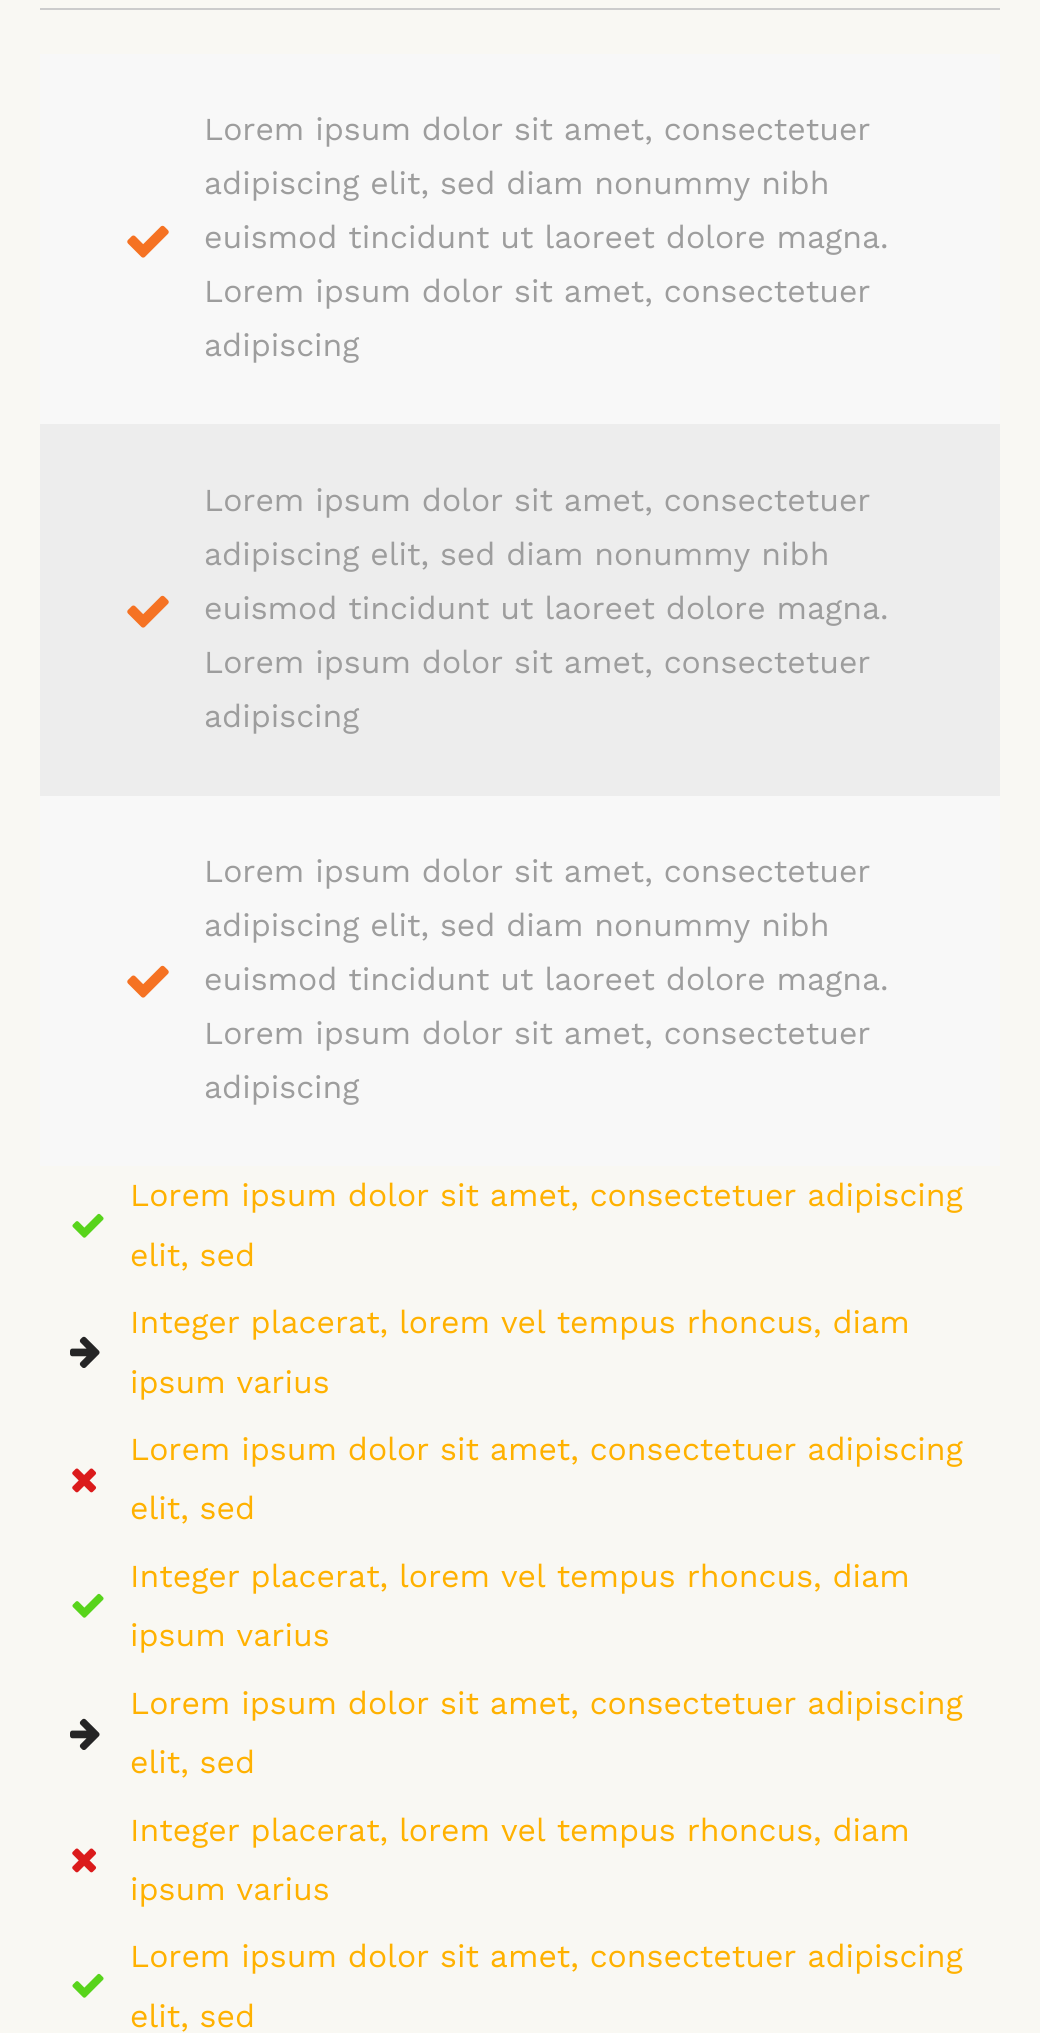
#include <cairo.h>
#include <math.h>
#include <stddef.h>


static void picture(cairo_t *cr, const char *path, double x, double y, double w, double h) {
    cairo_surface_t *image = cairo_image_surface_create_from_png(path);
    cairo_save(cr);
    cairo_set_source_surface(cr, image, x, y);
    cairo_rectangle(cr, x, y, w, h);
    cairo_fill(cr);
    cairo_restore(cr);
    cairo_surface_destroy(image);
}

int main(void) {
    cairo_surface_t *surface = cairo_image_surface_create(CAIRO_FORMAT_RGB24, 1040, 2033);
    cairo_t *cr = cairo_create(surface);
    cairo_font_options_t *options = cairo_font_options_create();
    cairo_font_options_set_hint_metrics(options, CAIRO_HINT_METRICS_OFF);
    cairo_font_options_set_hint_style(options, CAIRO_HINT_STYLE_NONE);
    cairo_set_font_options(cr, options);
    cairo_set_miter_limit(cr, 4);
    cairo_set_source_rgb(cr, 0.973, 0.969, 0.953);
    cairo_paint(cr);
    cairo_set_source_rgb(cr, 0.8, 0.8, 0.8);
    cairo_rectangle(cr, 40, 8, 960, 2);
    cairo_fill(cr);
    cairo_set_source_rgb(cr, 0.969, 0.969, 0.969);
    cairo_rectangle(cr, 40, 54, 960, 370);
    cairo_fill(cr);
    cairo_select_font_face(cr, "Work Sans", CAIRO_FONT_SLANT_NORMAL, CAIRO_FONT_WEIGHT_NORMAL);
    cairo_set_font_size(cr, 32);
    cairo_set_source_rgb(cr, 0.616, 0.616, 0.616);
    cairo_move_to(cr, 204, 140);
    cairo_show_text(cr, "Lorem ipsum dolor sit amet, consectetuer");
    cairo_move_to(cr, 204, 194);
    cairo_show_text(cr, "adipiscing elit, sed diam nonummy nibh");
    picture(cr, "img1.png", 127, 225, 42, 33);
    cairo_move_to(cr, 204, 248);
    cairo_show_text(cr, "euismod tincidunt ut laoreet dolore magna.");
    cairo_move_to(cr, 204, 302);
    cairo_show_text(cr, "Lorem ipsum dolor sit amet, consectetuer");
    cairo_move_to(cr, 204, 356);
    cairo_show_text(cr, "adipiscing");
    cairo_set_source_rgb(cr, 0.929, 0.929, 0.929);
    cairo_rectangle(cr, 40, 424, 960, 372);
    cairo_fill(cr);
    cairo_set_source_rgb(cr, 0.616, 0.616, 0.616);
    cairo_move_to(cr, 204, 511);
    cairo_show_text(cr, "Lorem ipsum dolor sit amet, consectetuer");
    cairo_move_to(cr, 204, 565);
    cairo_show_text(cr, "adipiscing elit, sed diam nonummy nibh");
    picture(cr, "img2.png", 127, 595, 42, 33);
    cairo_move_to(cr, 204, 619);
    cairo_show_text(cr, "euismod tincidunt ut laoreet dolore magna.");
    cairo_move_to(cr, 204, 673);
    cairo_show_text(cr, "Lorem ipsum dolor sit amet, consectetuer");
    cairo_move_to(cr, 204, 727);
    cairo_show_text(cr, "adipiscing");
    cairo_set_source_rgb(cr, 0.969, 0.969, 0.969);
    cairo_rectangle(cr, 40, 796, 960, 370);
    cairo_fill(cr);
    cairo_set_source_rgb(cr, 0.616, 0.616, 0.616);
    cairo_move_to(cr, 204, 882);
    cairo_show_text(cr, "Lorem ipsum dolor sit amet, consectetuer");
    cairo_move_to(cr, 204, 936);
    cairo_show_text(cr, "adipiscing elit, sed diam nonummy nibh");
    picture(cr, "img1.png", 127, 965, 42, 33);
    cairo_move_to(cr, 204, 990);
    cairo_show_text(cr, "euismod tincidunt ut laoreet dolore magna.");
    cairo_move_to(cr, 204, 1044);
    cairo_show_text(cr, "Lorem ipsum dolor sit amet, consectetuer");
    cairo_move_to(cr, 204, 1098);
    cairo_show_text(cr, "adipiscing");
    cairo_set_source_rgb(cr, 1, 0.694, 0);
    cairo_move_to(cr, 130, 1206);
    cairo_show_text(cr, "Lorem ipsum dolor sit amet, consectetuer adipiscing");
    picture(cr, "img3.png", 72, 1213, 32, 25);
    cairo_move_to(cr, 130, 1266);
    cairo_show_text(cr, "elit, sed");
    cairo_move_to(cr, 130, 1333);
    cairo_show_text(cr, "Integer placerat, lorem vel tempus rhoncus, diam");
    picture(cr, "img4.png", 70, 1336, 30, 32);
    cairo_move_to(cr, 130, 1393);
    cairo_show_text(cr, "ipsum varius");
    cairo_move_to(cr, 130, 1460);
    cairo_show_text(cr, "Lorem ipsum dolor sit amet, consectetuer adipiscing");
    picture(cr, "img5.png", 72, 1468, 25, 25);
    cairo_move_to(cr, 130, 1519);
    cairo_show_text(cr, "elit, sed");
    cairo_move_to(cr, 130, 1587);
    cairo_show_text(cr, "Integer placerat, lorem vel tempus rhoncus, diam");
    picture(cr, "img3.png", 72, 1593, 32, 25);
    cairo_move_to(cr, 130, 1646);
    cairo_show_text(cr, "ipsum varius");
    cairo_move_to(cr, 130, 1714);
    cairo_show_text(cr, "Lorem ipsum dolor sit amet, consectetuer adipiscing");
    picture(cr, "img4.png", 70, 1718, 30, 32);
    cairo_move_to(cr, 130, 1773);
    cairo_show_text(cr, "elit, sed");
    cairo_move_to(cr, 130, 1841);
    cairo_show_text(cr, "Integer placerat, lorem vel tempus rhoncus, diam");
    picture(cr, "img5.png", 72, 1848, 25, 25);
    cairo_move_to(cr, 130, 1900);
    cairo_show_text(cr, "ipsum varius");
    cairo_move_to(cr, 130, 1967);
    cairo_show_text(cr, "Lorem ipsum dolor sit amet, consectetuer adipiscing");
    picture(cr, "img3.png", 72, 1973, 32, 25);
    cairo_move_to(cr, 130, 2027);
    cairo_show_text(cr, "elit, sed");
    cairo_surface_write_to_png(surface, "page.png");
    cairo_font_options_destroy(options);
    cairo_destroy(cr);
    cairo_surface_destroy(surface);
    return 0;
}
